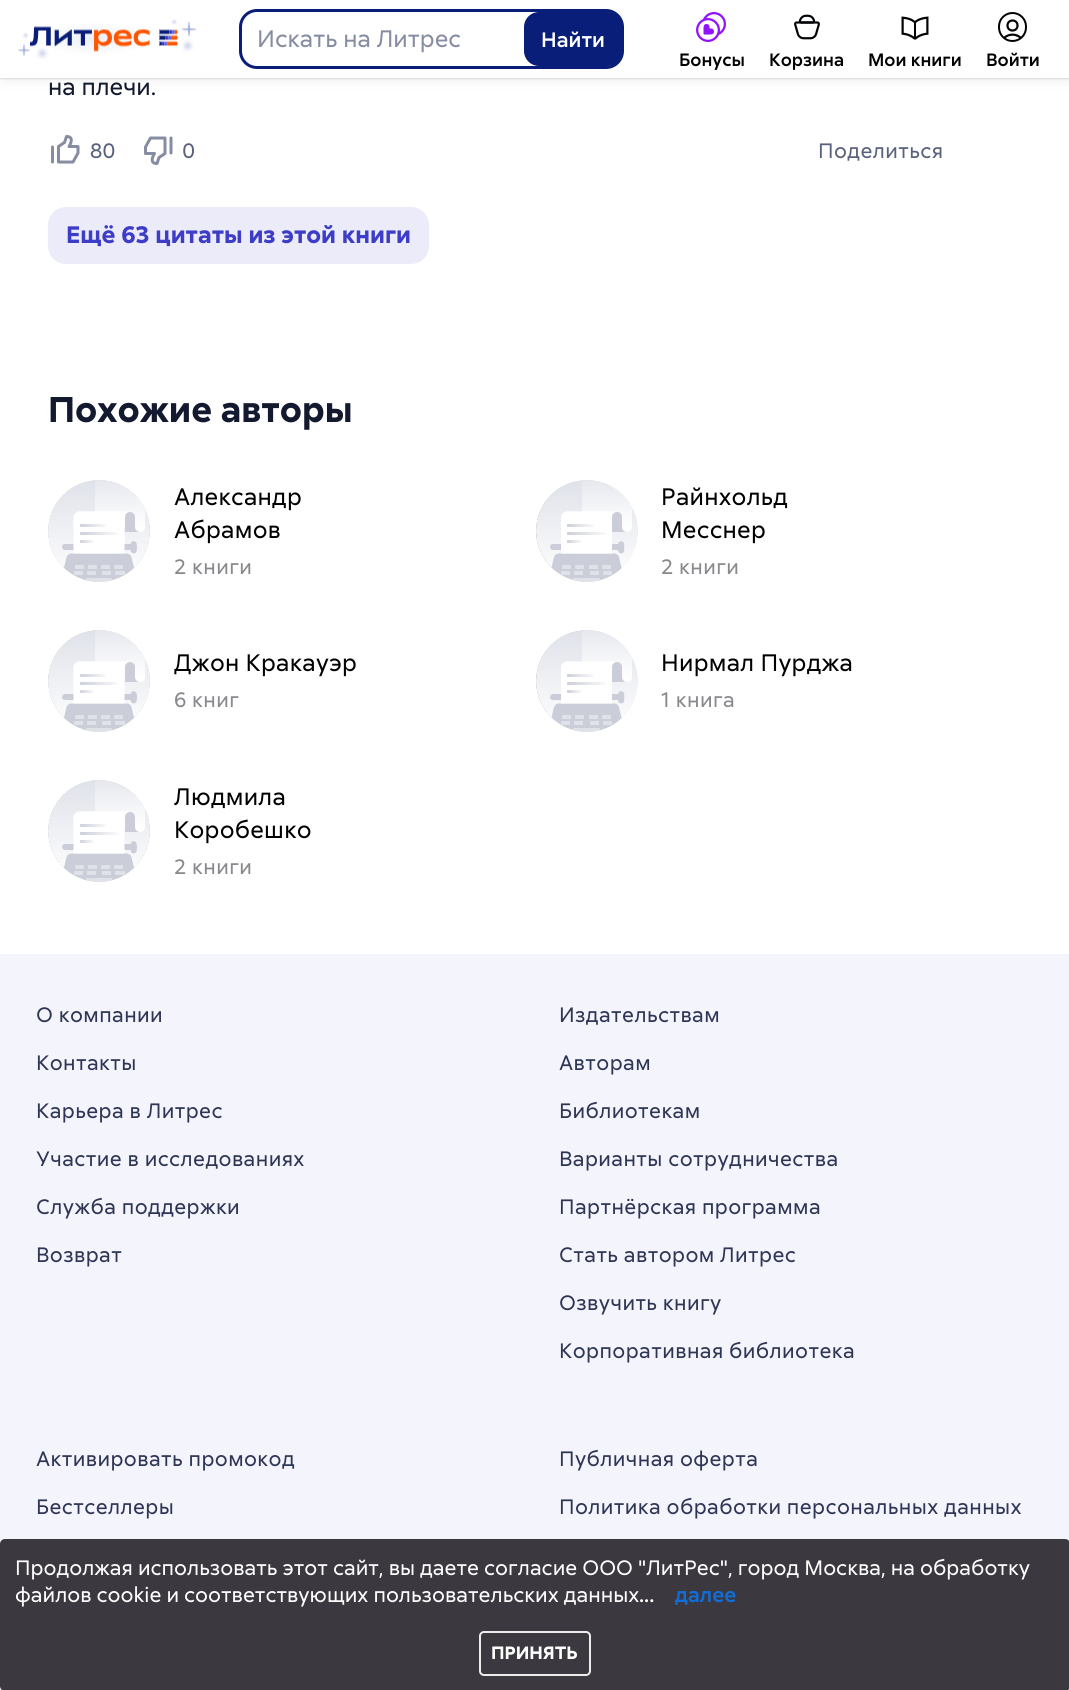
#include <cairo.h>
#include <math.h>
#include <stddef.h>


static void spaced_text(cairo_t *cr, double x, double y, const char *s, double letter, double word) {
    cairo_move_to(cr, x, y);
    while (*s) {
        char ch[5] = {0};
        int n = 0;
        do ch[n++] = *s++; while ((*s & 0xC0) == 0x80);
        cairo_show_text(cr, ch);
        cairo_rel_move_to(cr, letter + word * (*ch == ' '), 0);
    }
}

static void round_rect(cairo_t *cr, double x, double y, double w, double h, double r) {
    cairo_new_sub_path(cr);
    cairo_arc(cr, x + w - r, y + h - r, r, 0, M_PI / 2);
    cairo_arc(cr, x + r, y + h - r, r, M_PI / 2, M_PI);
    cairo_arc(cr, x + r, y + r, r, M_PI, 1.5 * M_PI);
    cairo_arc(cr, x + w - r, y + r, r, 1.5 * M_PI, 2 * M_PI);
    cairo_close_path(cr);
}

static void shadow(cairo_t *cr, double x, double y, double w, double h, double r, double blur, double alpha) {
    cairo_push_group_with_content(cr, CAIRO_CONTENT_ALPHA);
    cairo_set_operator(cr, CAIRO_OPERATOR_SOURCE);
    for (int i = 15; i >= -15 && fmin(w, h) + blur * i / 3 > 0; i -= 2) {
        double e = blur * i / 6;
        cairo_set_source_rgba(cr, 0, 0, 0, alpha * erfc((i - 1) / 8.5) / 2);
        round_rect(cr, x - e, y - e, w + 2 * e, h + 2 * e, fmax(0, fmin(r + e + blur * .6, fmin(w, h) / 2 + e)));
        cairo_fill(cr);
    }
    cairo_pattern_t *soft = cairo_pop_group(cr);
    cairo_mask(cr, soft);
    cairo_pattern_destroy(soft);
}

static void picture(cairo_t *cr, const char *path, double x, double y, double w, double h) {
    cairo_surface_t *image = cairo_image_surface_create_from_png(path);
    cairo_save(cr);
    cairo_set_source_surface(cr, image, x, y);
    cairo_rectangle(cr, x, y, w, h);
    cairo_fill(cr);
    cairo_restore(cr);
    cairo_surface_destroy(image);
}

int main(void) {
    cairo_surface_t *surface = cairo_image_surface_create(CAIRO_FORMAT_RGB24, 1069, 1690);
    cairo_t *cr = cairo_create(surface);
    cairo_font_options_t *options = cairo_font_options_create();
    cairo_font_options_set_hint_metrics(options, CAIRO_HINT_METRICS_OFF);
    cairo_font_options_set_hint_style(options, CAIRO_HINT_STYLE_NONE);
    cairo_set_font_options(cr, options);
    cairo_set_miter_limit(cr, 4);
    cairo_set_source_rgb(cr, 1, 1, 1);
    cairo_paint(cr);
    cairo_set_source_rgb(cr, 0, 0, 0);
    shadow(cr, 3, 6, 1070, 78, 0, 6, 0.04);
    shadow(cr, 0, 0, 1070, 78, 0, 1.5, 0.24);
    cairo_set_source_rgb(cr, 1, 1, 1);
    cairo_rectangle(cr, 0, 0, 1069, 78);
    cairo_fill(cr);
    picture(cr, "img1.png", 18, 19, 178, 40);
    round_rect(cr, 240.5, 10.5, 382, 57, 16.5);
    cairo_set_source_rgb(cr, 0.039, 0.118, 0.471);
    cairo_set_line_width(cr, 3);
    cairo_stroke(cr);
    cairo_select_font_face(cr, "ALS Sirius", CAIRO_FONT_SLANT_NORMAL, CAIRO_FONT_WEIGHT_NORMAL);
    cairo_set_font_size(cr, 24);
    cairo_set_source_rgb(cr, 0.525, 0.549, 0.635);
    cairo_move_to(cr, 257, 47);
    cairo_show_text(cr, "Искать на Литрес");
    cairo_set_source_rgb(cr, 0.039, 0.118, 0.471);
    round_rect(cr, 524, 12, 99, 54, 15);
    cairo_fill(cr);
    cairo_select_font_face(cr, "ALS Sirius Medium", CAIRO_FONT_SLANT_NORMAL, CAIRO_FONT_WEIGHT_NORMAL);
    cairo_set_font_size(cr, 21);
    cairo_set_source_rgb(cr, 1, 1, 1);
    cairo_move_to(cr, 541, 47);
    cairo_show_text(cr, "Найти");
    picture(cr, "img2.png", 696, 12, 30, 30);
    cairo_set_font_size(cr, 18);
    cairo_set_source_rgb(cr, 0, 0, 0);
    cairo_move_to(cr, 679, 66);
    cairo_show_text(cr, "Бонусы");
    picture(cr, "img3.png", 794, 14, 26, 26);
    cairo_move_to(cr, 769, 66);
    cairo_show_text(cr, "Корзина");
    picture(cr, "img4.png", 901, 16, 28, 24);
    cairo_move_to(cr, 868, 66);
    cairo_show_text(cr, "Мои книги");
    cairo_new_path(cr);
    cairo_arc(cr, 1012.5, 25.5, 5, 0, 2 * M_PI);
    cairo_set_source_rgb(cr, 0.008, 0.012, 0.02);
    cairo_set_line_width(cr, 2.2);
    cairo_stroke(cr);
    cairo_new_path(cr);
    cairo_move_to(cr, 1004, 38);
    cairo_curve_to(cr, 1009, 33.5, 1016, 33.5, 1021, 38);
    cairo_stroke(cr);
    round_rect(cr, 999, 13, 27, 28, 13.5);
    cairo_set_line_width(cr, 2);
    cairo_stroke(cr);
    cairo_set_source_rgb(cr, 0, 0, 0);
    cairo_move_to(cr, 986, 66);
    cairo_show_text(cr, "Войти");
    cairo_select_font_face(cr, "ALS Sirius", CAIRO_FONT_SLANT_NORMAL, CAIRO_FONT_WEIGHT_NORMAL);
    cairo_set_font_size(cr, 24);
    cairo_set_source_rgb(cr, 0.075, 0.098, 0.18);
    cairo_move_to(cr, 48, 95);
    cairo_show_text(cr, "на плечи.");
    cairo_new_path(cr);
    cairo_move_to(cr, 58.5, 162);
    cairo_line_to(cr, 58.5, 146.5);
    cairo_line_to(cr, 64.5, 142.5);
    cairo_line_to(cr, 66.5, 136.5);
    cairo_curve_to(cr, 74, 136.5, 71, 143.5, 69, 146.5);
    cairo_line_to(cr, 78, 146.5);
    cairo_line_to(cr, 78, 153);
    cairo_line_to(cr, 73, 162);
    cairo_close_path(cr);
    cairo_set_source_rgb(cr, 0.525, 0.549, 0.635);
    cairo_set_line_width(cr, 3);
    cairo_set_line_join(cr, CAIRO_LINE_JOIN_ROUND);
    cairo_stroke(cr);
    cairo_new_path(cr);
    cairo_move_to(cr, 52.5, 147);
    cairo_line_to(cr, 52.5, 162);
    cairo_set_line_cap(cr, CAIRO_LINE_CAP_ROUND);
    cairo_set_line_join(cr, CAIRO_LINE_JOIN_MITER);
    cairo_stroke(cr);
    cairo_set_font_size(cr, 21);
    cairo_set_source_rgb(cr, 0.353, 0.38, 0.486);
    cairo_move_to(cr, 90, 158);
    cairo_show_text(cr, "80");
    cairo_new_path(cr);
    cairo_move_to(cr, 165, 138);
    cairo_line_to(cr, 165, 153.5);
    cairo_line_to(cr, 159, 157.5);
    cairo_line_to(cr, 157, 163.5);
    cairo_curve_to(cr, 149.5, 163.5, 152.5, 156.5, 154.5, 153.5);
    cairo_line_to(cr, 145.5, 153.5);
    cairo_line_to(cr, 145.5, 147);
    cairo_line_to(cr, 150.5, 138);
    cairo_close_path(cr);
    cairo_set_source_rgb(cr, 0.525, 0.549, 0.635);
    cairo_set_line_cap(cr, CAIRO_LINE_CAP_BUTT);
    cairo_set_line_join(cr, CAIRO_LINE_JOIN_ROUND);
    cairo_stroke(cr);
    cairo_new_path(cr);
    cairo_move_to(cr, 171, 153);
    cairo_line_to(cr, 171, 138);
    cairo_set_line_cap(cr, CAIRO_LINE_CAP_ROUND);
    cairo_set_line_join(cr, CAIRO_LINE_JOIN_MITER);
    cairo_stroke(cr);
    cairo_set_source_rgb(cr, 0.353, 0.38, 0.486);
    cairo_move_to(cr, 182, 158);
    cairo_show_text(cr, "0");
    spaced_text(cr, 818, 158, "Поделиться", 0.4, 0);
    cairo_set_source_rgb(cr, 0.918, 0.918, 0.976);
    round_rect(cr, 48, 207, 381, 57, 18);
    cairo_fill(cr);
    cairo_select_font_face(cr, "ALS Sirius", CAIRO_FONT_SLANT_NORMAL, CAIRO_FONT_WEIGHT_BOLD);
    cairo_set_font_size(cr, 24);
    cairo_set_source_rgb(cr, 0.239, 0.239, 0.78);
    cairo_move_to(cr, 66, 243);
    cairo_show_text(cr, "Ещё 63 цитаты из этой книги");
    cairo_set_font_size(cr, 36);
    cairo_set_source_rgb(cr, 0.075, 0.098, 0.18);
    cairo_move_to(cr, 48, 422);
    cairo_show_text(cr, "Похожие авторы");
    picture(cr, "img5.png", 48, 480, 102, 102);
    cairo_select_font_face(cr, "ALS Sirius", CAIRO_FONT_SLANT_NORMAL, CAIRO_FONT_WEIGHT_NORMAL);
    cairo_set_font_size(cr, 24);
    cairo_set_source_rgb(cr, 0, 0, 0);
    spaced_text(cr, 174, 505, "Александр", 0.25, 0);
    spaced_text(cr, 174, 538, "Абрамов", 0.25, 0);
    cairo_set_font_size(cr, 21);
    cairo_set_source_rgb(cr, 0.537, 0.533, 0.549);
    spaced_text(cr, 174, 574, "2 книги", 0.4, 0);
    picture(cr, "img6.png", 536, 480, 102, 102);
    cairo_set_font_size(cr, 24);
    cairo_set_source_rgb(cr, 0, 0, 0);
    spaced_text(cr, 661, 505, "Райнхольд", 0.25, 0);
    spaced_text(cr, 661, 538, "Месснер", 0.25, 0);
    cairo_set_font_size(cr, 21);
    cairo_set_source_rgb(cr, 0.537, 0.533, 0.549);
    spaced_text(cr, 661, 574, "2 книги", 0.4, 0);
    picture(cr, "img5.png", 48, 630, 102, 102);
    cairo_set_font_size(cr, 24);
    cairo_set_source_rgb(cr, 0, 0, 0);
    spaced_text(cr, 174, 671, "Джон Кракауэр", 0.25, 0);
    cairo_set_font_size(cr, 21);
    cairo_set_source_rgb(cr, 0.537, 0.533, 0.549);
    spaced_text(cr, 174, 707, "6 книг", 0.4, 0);
    picture(cr, "img6.png", 536, 630, 102, 102);
    cairo_set_font_size(cr, 24);
    cairo_set_source_rgb(cr, 0, 0, 0);
    spaced_text(cr, 661, 671, "Нирмал Пурджа", 0.25, 0);
    cairo_set_font_size(cr, 21);
    cairo_set_source_rgb(cr, 0.537, 0.533, 0.549);
    spaced_text(cr, 661, 707, "1 книга", 0.4, 0);
    picture(cr, "img5.png", 48, 780, 102, 102);
    cairo_set_font_size(cr, 24);
    cairo_set_source_rgb(cr, 0, 0, 0);
    spaced_text(cr, 174, 805, "Людмила", 0.25, 0);
    spaced_text(cr, 174, 838, "Коробешко", 0.25, 0);
    cairo_set_font_size(cr, 21);
    cairo_set_source_rgb(cr, 0.537, 0.533, 0.549);
    spaced_text(cr, 174, 874, "2 книги", 0.4, 0);
    cairo_set_source_rgb(cr, 0.957, 0.957, 0.988);
    cairo_rectangle(cr, 0, 954, 1069, 736);
    cairo_fill(cr);
    cairo_set_source_rgb(cr, 0.184, 0.212, 0.333);
    spaced_text(cr, 36, 1022, "О компании", 0.4, 0);
    spaced_text(cr, 36, 1070, "Контакты", 0.4, 0);
    spaced_text(cr, 36, 1118, "Карьера в Литрес", 0.4, 0);
    spaced_text(cr, 36, 1166, "Участие в исследованиях", 0.4, 0);
    spaced_text(cr, 36, 1214, "Служба поддержки", 0.4, 0);
    spaced_text(cr, 36, 1262, "Возврат", 0.4, 0);
    spaced_text(cr, 559, 1022, "Издательствам", 0.4, 0);
    spaced_text(cr, 559, 1070, "Авторам", 0.4, 0);
    spaced_text(cr, 559, 1118, "Библиотекам", 0.4, 0);
    spaced_text(cr, 559, 1166, "Варианты сотрудничества", 0.4, 0);
    spaced_text(cr, 559, 1214, "Партнёрская программа", 0.4, 0);
    spaced_text(cr, 559, 1262, "Стать автором Литрес", 0.4, 0);
    spaced_text(cr, 559, 1310, "Озвучить книгу", 0.4, 0);
    spaced_text(cr, 559, 1358, "Корпоративная библиотека", 0.4, 0);
    spaced_text(cr, 36, 1466, "Активировать промокод", 0.4, 0);
    spaced_text(cr, 36, 1514, "Бестселлеры", 0.4, 0);
    spaced_text(cr, 559, 1466, "Публичная оферта", 0.4, 0);
    spaced_text(cr, 559, 1514, "Политика обработки персональных данных", 0.4, 0);
    cairo_set_source_rgb(cr, 0.231, 0.224, 0.247);
    round_rect(cr, 0, 1539, 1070, 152, 5);
    cairo_fill(cr);
    cairo_set_source_rgb(cr, 1, 1, 1);
    cairo_move_to(cr, 15, 1575);
    cairo_show_text(cr, "Продолжая использовать этот сайт, вы даете согласие ООО \"ЛитРес\", город Москва, на обработку");
    cairo_move_to(cr, 15, 1602);
    cairo_show_text(cr, "файлов cookie и соответствующих пользовательских данных");
    cairo_select_font_face(cr, "ALS Sirius Medium", CAIRO_FONT_SLANT_NORMAL, CAIRO_FONT_WEIGHT_NORMAL);
    cairo_move_to(cr, 639, 1602);
    cairo_show_text(cr, "...");
    cairo_set_source_rgb(cr, 0.063, 0.431, 0.863);
    cairo_move_to(cr, 675, 1602);
    cairo_show_text(cr, "далее");
    round_rect(cr, 480, 1632, 110, 43, 4);
    cairo_set_source_rgb(cr, 0.922, 0.922, 0.922);
    cairo_set_line_width(cr, 2);
    cairo_set_line_cap(cr, CAIRO_LINE_CAP_BUTT);
    cairo_stroke(cr);
    cairo_select_font_face(cr, "ALS Sirius", CAIRO_FONT_SLANT_NORMAL, CAIRO_FONT_WEIGHT_BOLD);
    cairo_set_font_size(cr, 18);
    cairo_set_source_rgb(cr, 1, 1, 1);
    cairo_move_to(cr, 491, 1659);
    cairo_show_text(cr, "ПРИНЯТЬ");
    cairo_surface_write_to_png(surface, "page.png");
    cairo_font_options_destroy(options);
    cairo_destroy(cr);
    cairo_surface_destroy(surface);
    return 0;
}
